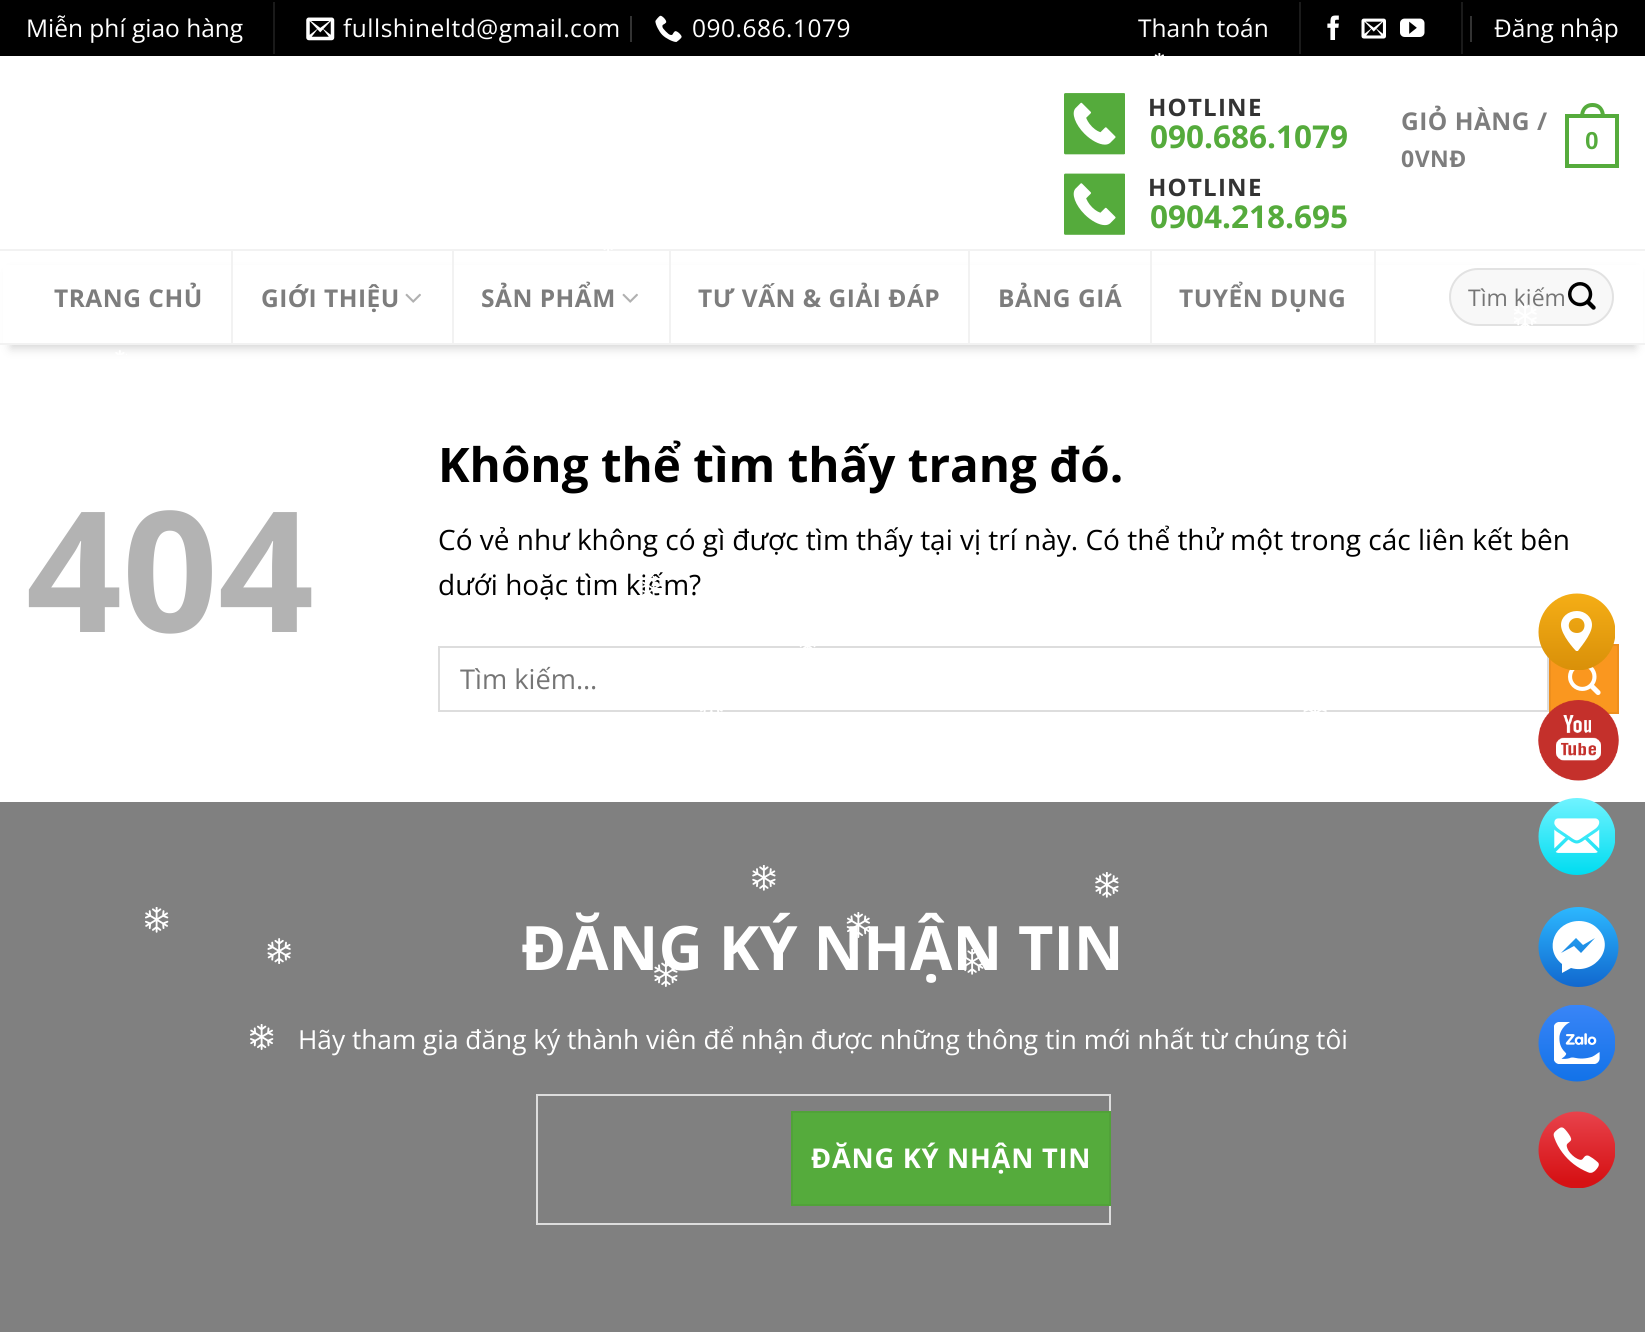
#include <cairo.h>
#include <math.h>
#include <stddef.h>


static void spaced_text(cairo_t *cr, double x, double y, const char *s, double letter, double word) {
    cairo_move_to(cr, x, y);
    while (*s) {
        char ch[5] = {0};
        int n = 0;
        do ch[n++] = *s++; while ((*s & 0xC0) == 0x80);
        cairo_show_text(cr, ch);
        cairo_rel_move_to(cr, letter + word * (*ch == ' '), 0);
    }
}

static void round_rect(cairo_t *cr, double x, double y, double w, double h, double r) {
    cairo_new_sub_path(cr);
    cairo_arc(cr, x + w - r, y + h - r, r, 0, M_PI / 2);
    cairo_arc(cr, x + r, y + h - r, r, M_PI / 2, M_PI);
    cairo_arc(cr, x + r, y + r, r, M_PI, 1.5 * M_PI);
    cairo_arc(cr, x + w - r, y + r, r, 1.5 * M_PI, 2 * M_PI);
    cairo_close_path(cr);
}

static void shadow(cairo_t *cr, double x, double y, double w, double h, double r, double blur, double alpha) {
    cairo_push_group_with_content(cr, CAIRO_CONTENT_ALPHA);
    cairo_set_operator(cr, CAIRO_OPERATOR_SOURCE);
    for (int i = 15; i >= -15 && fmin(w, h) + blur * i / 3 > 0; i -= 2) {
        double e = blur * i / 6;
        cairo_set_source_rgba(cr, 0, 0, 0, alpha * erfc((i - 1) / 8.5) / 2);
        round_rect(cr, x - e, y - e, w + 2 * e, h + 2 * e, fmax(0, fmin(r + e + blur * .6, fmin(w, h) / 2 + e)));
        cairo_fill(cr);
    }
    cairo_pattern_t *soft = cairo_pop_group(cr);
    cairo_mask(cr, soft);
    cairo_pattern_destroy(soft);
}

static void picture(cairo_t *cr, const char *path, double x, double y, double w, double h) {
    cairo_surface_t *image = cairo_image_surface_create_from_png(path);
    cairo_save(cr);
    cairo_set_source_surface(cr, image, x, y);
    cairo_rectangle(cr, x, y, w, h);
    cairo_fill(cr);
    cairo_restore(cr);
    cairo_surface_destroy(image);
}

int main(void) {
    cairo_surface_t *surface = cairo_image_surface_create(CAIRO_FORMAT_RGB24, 1645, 1332);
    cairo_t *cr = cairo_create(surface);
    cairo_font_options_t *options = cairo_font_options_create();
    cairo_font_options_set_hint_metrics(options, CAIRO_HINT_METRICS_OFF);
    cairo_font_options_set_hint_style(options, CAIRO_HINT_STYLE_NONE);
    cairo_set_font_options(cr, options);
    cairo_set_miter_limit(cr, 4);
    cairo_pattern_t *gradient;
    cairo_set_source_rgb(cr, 1, 1, 1);
    cairo_paint(cr);
    cairo_set_source_rgb(cr, 0, 0, 0);
    cairo_rectangle(cr, 0, 0, 1645, 56);
    cairo_fill(cr);
    cairo_select_font_face(cr, "Open Sans", CAIRO_FONT_SLANT_NORMAL, CAIRO_FONT_WEIGHT_NORMAL);
    cairo_set_font_size(cr, 24.5);
    cairo_set_source_rgb(cr, 1, 1, 1);
    cairo_move_to(cr, 26, 37);
    cairo_show_text(cr, "Miễn phí giao hàng");
    cairo_set_source_rgb(cr, 0.102, 0.102, 0.102);
    cairo_rectangle(cr, 273, 2, 2, 52);
    cairo_fill(cr);
    picture(cr, "img1.png", 306, 17, 29, 24);
    cairo_set_source_rgb(cr, 1, 1, 1);
    spaced_text(cr, 343, 37, "fullshineltd@gmail.com", 0.5, 0);
    cairo_set_source_rgb(cr, 0.2, 0.2, 0.2);
    cairo_rectangle(cr, 630, 16, 2, 26);
    cairo_fill(cr);
    picture(cr, "img2.png", 655, 15, 27, 27);
    cairo_set_source_rgb(cr, 1, 1, 1);
    spaced_text(cr, 692, 37, "090.686.1079", 0.5, 0);
    cairo_move_to(cr, 1138, 37);
    cairo_show_text(cr, "Thanh toán");
    cairo_set_source_rgb(cr, 0.102, 0.102, 0.102);
    cairo_rectangle(cr, 1299, 2, 2, 52);
    cairo_fill(cr);
    picture(cr, "img3.png", 1327, 15, 12, 25);
    picture(cr, "img4.png", 1361, 18, 25, 21);
    picture(cr, "img5.png", 1400, 18, 25, 19);
    cairo_rectangle(cr, 1461, 2, 2, 52);
    cairo_fill(cr);
    cairo_set_source_rgb(cr, 0.2, 0.2, 0.2);
    cairo_rectangle(cr, 1470, 16, 2, 26);
    cairo_fill(cr);
    cairo_set_source_rgb(cr, 1, 1, 1);
    cairo_move_to(cr, 1494, 37);
    cairo_show_text(cr, "Đăng nhập");
    picture(cr, "img6.png", 1064, 93, 61, 62);
    cairo_select_font_face(cr, "Open Sans", CAIRO_FONT_SLANT_NORMAL, CAIRO_FONT_WEIGHT_BOLD);
    cairo_set_font_size(cr, 24);
    cairo_set_source_rgb(cr, 0.2, 0.2, 0.2);
    spaced_text(cr, 1148, 116, "HOTLINE", 1.25, 0);
    cairo_set_font_size(cr, 31.5);
    cairo_set_source_rgb(cr, 0.333, 0.671, 0.235);
    cairo_move_to(cr, 1150, 148);
    cairo_show_text(cr, "090.686.1079");
    picture(cr, "img7.png", 1064, 173, 61, 62);
    cairo_set_font_size(cr, 24);
    cairo_set_source_rgb(cr, 0.2, 0.2, 0.2);
    spaced_text(cr, 1148, 196, "HOTLINE", 1.25, 0);
    cairo_set_font_size(cr, 31.5);
    cairo_set_source_rgb(cr, 0.333, 0.671, 0.235);
    cairo_move_to(cr, 1150, 228);
    cairo_show_text(cr, "0904.218.695");
    cairo_set_font_size(cr, 24.5);
    cairo_set_source_rgb(cr, 0.49, 0.49, 0.49);
    spaced_text(cr, 1401, 130, "GIỎ HÀNG /", 0.5, 0);
    cairo_set_font_size(cr, 23);
    spaced_text(cr, 1401, 167, "0VNĐ", 0.5, 0);
    cairo_rectangle(cr, 1567, 116, 50, 50);
    cairo_set_source_rgb(cr, 0.333, 0.671, 0.235);
    cairo_set_line_width(cr, 4);
    cairo_stroke(cr);
    cairo_set_fill_rule(cr, CAIRO_FILL_RULE_EVEN_ODD);
    cairo_new_path(cr);
    cairo_move_to(cr, 1592.5, 103);
    cairo_curve_to(cr, 1601, 103, 1605, 109.5, 1605, 117);
    cairo_line_to(cr, 1580, 117);
    cairo_curve_to(cr, 1580, 109.5, 1584, 103, 1592.5, 103);
    cairo_close_path(cr);
    cairo_move_to(cr, 1592.5, 107);
    cairo_curve_to(cr, 1599, 107, 1601, 111.5, 1601, 117);
    cairo_line_to(cr, 1584, 117);
    cairo_curve_to(cr, 1584, 111.5, 1586, 107, 1592.5, 107);
    cairo_close_path(cr);
    cairo_fill(cr);
    cairo_select_font_face(cr, "Liberation Sans", CAIRO_FONT_SLANT_NORMAL, CAIRO_FONT_WEIGHT_BOLD);
    cairo_set_font_size(cr, 24.5);
    spaced_text(cr, 1585, 149, "0", 0.5, 0);
    cairo_set_source_rgb(cr, 0.831, 0.831, 0.831);
    shadow(cr, 11, 273, 1624, 75, 0, 5, 1);
    cairo_set_source_rgb(cr, 1, 1, 1);
    cairo_rectangle(cr, 3, 265, 1640, 78);
    cairo_fill(cr);
    cairo_set_source_rgb(cr, 0.949, 0.949, 0.949);
    cairo_rectangle(cr, 0, 249, 1645, 2);
    cairo_fill(cr);
    cairo_rectangle(cr, 0, 343, 1645, 2);
    cairo_fill(cr);
    cairo_rectangle(cr, 231, 250, 2, 93);
    cairo_fill(cr);
    cairo_select_font_face(cr, "Open Sans", CAIRO_FONT_SLANT_NORMAL, CAIRO_FONT_WEIGHT_BOLD);
    cairo_set_source_rgb(cr, 0.49, 0.49, 0.49);
    spaced_text(cr, 54, 307, "TRANG CHỦ", 0.5, 0);
    cairo_set_source_rgb(cr, 0.949, 0.949, 0.949);
    cairo_rectangle(cr, 452, 250, 2, 93);
    cairo_fill(cr);
    cairo_set_source_rgb(cr, 0.49, 0.49, 0.49);
    spaced_text(cr, 261, 307, "GIỚI THIỆU", 0.5, 0);
    picture(cr, "img8.png", 405, 293, 16, 10);
    cairo_set_source_rgb(cr, 0.949, 0.949, 0.949);
    cairo_rectangle(cr, 669, 250, 2, 93);
    cairo_fill(cr);
    cairo_set_source_rgb(cr, 0.49, 0.49, 0.49);
    spaced_text(cr, 481, 307, "SẢN PHẨM", 0.5, 0);
    picture(cr, "img8.png", 622, 293, 16, 10);
    cairo_set_source_rgb(cr, 0.949, 0.949, 0.949);
    cairo_rectangle(cr, 968, 250, 2, 93);
    cairo_fill(cr);
    cairo_set_source_rgb(cr, 0.49, 0.49, 0.49);
    spaced_text(cr, 698, 307, "TƯ VẤN & GIẢI ĐÁP", 0.5, 0);
    cairo_set_source_rgb(cr, 0.949, 0.949, 0.949);
    cairo_rectangle(cr, 1150, 250, 2, 93);
    cairo_fill(cr);
    cairo_set_source_rgb(cr, 0.49, 0.49, 0.49);
    spaced_text(cr, 998, 307, "BẢNG GIÁ", 0.5, 0);
    cairo_set_source_rgb(cr, 0.949, 0.949, 0.949);
    cairo_rectangle(cr, 1374, 250, 2, 93);
    cairo_fill(cr);
    cairo_set_source_rgb(cr, 0.49, 0.49, 0.49);
    spaced_text(cr, 1179, 307, "TUYỂN DỤNG", 0.5, 0);
    cairo_set_source_rgb(cr, 0.969, 0.969, 0.969);
    round_rect(cr, 1449, 268, 165, 58, 29);
    cairo_fill(cr);
    round_rect(cr, 1450, 269, 163, 56, 28);
    cairo_set_source_rgba(cr, 0, 0, 0, 0.09);
    cairo_set_line_width(cr, 2);
    cairo_stroke(cr);
    cairo_select_font_face(cr, "Open Sans", CAIRO_FONT_SLANT_NORMAL, CAIRO_FONT_WEIGHT_NORMAL);
    cairo_set_font_size(cr, 23);
    cairo_set_source_rgb(cr, 0.459, 0.459, 0.459);
    cairo_move_to(cr, 1468, 306);
    cairo_show_text(cr, "Tìm kiếm");
    picture(cr, "img9.png", 1568, 282, 28, 28);
    cairo_select_font_face(cr, "Open Sans", CAIRO_FONT_SLANT_NORMAL, CAIRO_FONT_WEIGHT_BOLD);
    cairo_set_font_size(cr, 168);
    cairo_set_source_rgb(cr, 0.702, 0.702, 0.702);
    cairo_move_to(cr, 26, 632);
    cairo_show_text(cr, "404");
    cairo_set_font_size(cr, 47.6);
    cairo_set_source_rgb(cr, 0, 0, 0);
    cairo_move_to(cr, 438, 482);
    cairo_show_text(cr, "Không thể tìm thấy trang đó.");
    cairo_select_font_face(cr, "Open Sans", CAIRO_FONT_SLANT_NORMAL, CAIRO_FONT_WEIGHT_NORMAL);
    cairo_set_font_size(cr, 28);
    cairo_move_to(cr, 438, 550);
    cairo_show_text(cr, "Có vẻ như không có gì được tìm thấy tại vị trí này. Có thể thử một trong các liên kết bên");
    cairo_move_to(cr, 438, 595);
    cairo_show_text(cr, "dưới hoặc tìm kiếm?");
    cairo_rectangle(cr, 439, 647, 1109, 64);
    cairo_set_source_rgb(cr, 0.867, 0.867, 0.867);
    cairo_stroke(cr);
    cairo_save(cr);
    cairo_set_fill_rule(cr, CAIRO_FILL_RULE_WINDING);
    cairo_rectangle(cr, 460, 660, 1061, 38);
    cairo_clip(cr);
    cairo_set_font_size(cr, 27.25);
    cairo_set_source_rgb(cr, 0.459, 0.459, 0.459);
    cairo_move_to(cr, 460, 689);
    cairo_show_text(cr, "Tìm kiếm…");
    cairo_restore(cr);
    cairo_set_source_rgb(cr, 0.98, 0.592, 0.122);
    cairo_rectangle(cr, 1550, 645, 68, 68);
    cairo_fill_preserve(cr);
    cairo_set_source_rgb(cr, 0.933, 0.561, 0.114);
    cairo_stroke(cr);
    picture(cr, "img10.png", 1568, 667, 33, 28);
    cairo_set_source_rgb(cr, 0.502, 0.502, 0.502);
    cairo_rectangle(cr, 0, 802, 1645, 530);
    cairo_fill(cr);
    cairo_select_font_face(cr, "Open Sans", CAIRO_FONT_SLANT_NORMAL, CAIRO_FONT_WEIGHT_BOLD);
    cairo_set_font_size(cr, 61.25);
    cairo_set_source_rgb(cr, 1, 1, 1);
    cairo_move_to(cr, 521, 970);
    cairo_show_text(cr, "ĐĂNG KÝ NHẬN TIN");
    cairo_select_font_face(cr, "Open Sans", CAIRO_FONT_SLANT_NORMAL, CAIRO_FONT_WEIGHT_NORMAL);
    cairo_set_font_size(cr, 26.25);
    cairo_move_to(cr, 298, 1049);
    cairo_show_text(cr, "Hãy tham gia đăng ký thành viên để nhận được những thông tin mới nhất từ chúng tôi");
    cairo_rectangle(cr, 537, 1095, 573, 129);
    cairo_set_source_rgb(cr, 0.867, 0.867, 0.867);
    cairo_stroke(cr);
    cairo_set_source_rgb(cr, 0.333, 0.671, 0.235);
    cairo_rectangle(cr, 792, 1112, 318, 93);
    cairo_fill_preserve(cr);
    cairo_set_source_rgb(cr, 0.318, 0.635, 0.224);
    cairo_stroke(cr);
    cairo_select_font_face(cr, "Open Sans", CAIRO_FONT_SLANT_NORMAL, CAIRO_FONT_WEIGHT_BOLD);
    cairo_set_font_size(cr, 27.25);
    cairo_set_source_rgb(cr, 1, 1, 1);
    spaced_text(cr, 811, 1168, "ĐĂNG KÝ NHẬN TIN", 0.75, 0);
    picture(cr, "img11.png", 1154, 53, 10, 3);
    picture(cr, "img12.png", 603, 249, 10, 2);
    picture(cr, "img13.png", 1514, 303, 23, 23);
    picture(cr, "img14.png", 115, 350, 12, 5);
    picture(cr, "img15.png", 642, 576, 24, 20);
    picture(cr, "img16.png", 799, 646, 17, 2);
    cairo_save(cr);
    cairo_set_fill_rule(cr, CAIRO_FILL_RULE_WINDING);
    cairo_rectangle(cr, 1538, 593, 77, 77);
    cairo_clip(cr);
    gradient = cairo_pattern_create_linear(1577, 593, 1577, 670);
    cairo_pattern_add_color_stop_rgba(gradient, 0, 0.961, 0.682, 0.086, 1);
    cairo_pattern_add_color_stop_rgba(gradient, 1, 0.851, 0.565, 0.035, 1);
    cairo_set_source(cr, gradient);
    cairo_pattern_destroy(gradient);
    cairo_arc(cr, 1577, 632, 38.5, 0, 2 * M_PI);
    cairo_fill(cr);
    cairo_restore(cr);
    cairo_set_fill_rule(cr, CAIRO_FILL_RULE_WINDING);
    cairo_new_path(cr);
    cairo_move_to(cr, 1577, 611);
    cairo_curve_to(cr, 1568, 611, 1561, 617, 1561, 625);
    cairo_curve_to(cr, 1561, 635, 1575, 650, 1576, 651);
    cairo_curve_to(cr, 1576, 651, 1577, 651, 1578, 651);
    cairo_curve_to(cr, 1578, 650, 1592, 635, 1592, 625);
    cairo_curve_to(cr, 1592, 617, 1585, 611, 1577, 611);
    cairo_close_path(cr);
    cairo_move_to(cr, 1577, 633);
    cairo_curve_to(cr, 1566, 633, 1566, 618, 1577, 618);
    cairo_curve_to(cr, 1587, 618, 1587, 633, 1577, 633);
    cairo_close_path(cr);
    cairo_fill(cr);
    picture(cr, "img17.png", 1538, 700, 81, 81);
    picture(cr, "img18.png", 1538, 798, 77, 77);
    gradient = cairo_pattern_create_linear(1578, 986, 1578, 907);
    cairo_pattern_add_color_stop_rgba(gradient, 0, 0.067, 0.408, 0.812, 1);
    cairo_pattern_add_color_stop_rgba(gradient, 1, 0.173, 0.718, 1, 1);
    cairo_set_source(cr, gradient);
    cairo_pattern_destroy(gradient);
    cairo_arc(cr, 1578.5, 947, 40, 0, 2 * M_PI);
    cairo_fill(cr);
    cairo_set_source_rgb(cr, 1, 1, 1);
    cairo_set_fill_rule(cr, CAIRO_FILL_RULE_EVEN_ODD);
    cairo_new_path(cr);
    cairo_move_to(cr, 1579, 921);
    cairo_curve_to(cr, 1555, 921, 1543, 949, 1562, 964);
    cairo_line_to(cr, 1562, 973);
    cairo_line_to(cr, 1571, 968);
    cairo_curve_to(cr, 1595, 975, 1617, 947, 1597, 928);
    cairo_curve_to(cr, 1592, 923, 1585, 921, 1579, 921);
    cairo_close_path(cr);
    cairo_move_to(cr, 1581, 953);
    cairo_line_to(cr, 1574, 946);
    cairo_line_to(cr, 1561, 953);
    cairo_line_to(cr, 1576, 938);
    cairo_line_to(cr, 1583, 945);
    cairo_line_to(cr, 1595, 938);
    cairo_close_path(cr);
    cairo_fill(cr);
    picture(cr, "img19.png", 1538, 1005, 77, 77);
    picture(cr, "img20.png", 1538, 1111, 77, 77);
    picture(cr, "img21.png", 700, 710, 23, 2);
    picture(cr, "img22.png", 1303, 710, 24, 2);
    picture(cr, "img23.png", 752, 865, 24, 26);
    picture(cr, "img23.png", 1095, 872, 24, 26);
    picture(cr, "img24.png", 145, 907, 24, 26);
    picture(cr, "img25.png", 846, 912, 24, 26);
    picture(cr, "img26.png", 267, 938, 24, 26);
    picture(cr, "img27.png", 654, 961, 24, 26);
    picture(cr, "img28.png", 964, 949, 20, 26);
    picture(cr, "img29.png", 250, 1024, 24, 26);
    cairo_surface_write_to_png(surface, "page.png");
    cairo_font_options_destroy(options);
    cairo_destroy(cr);
    cairo_surface_destroy(surface);
    return 0;
}
